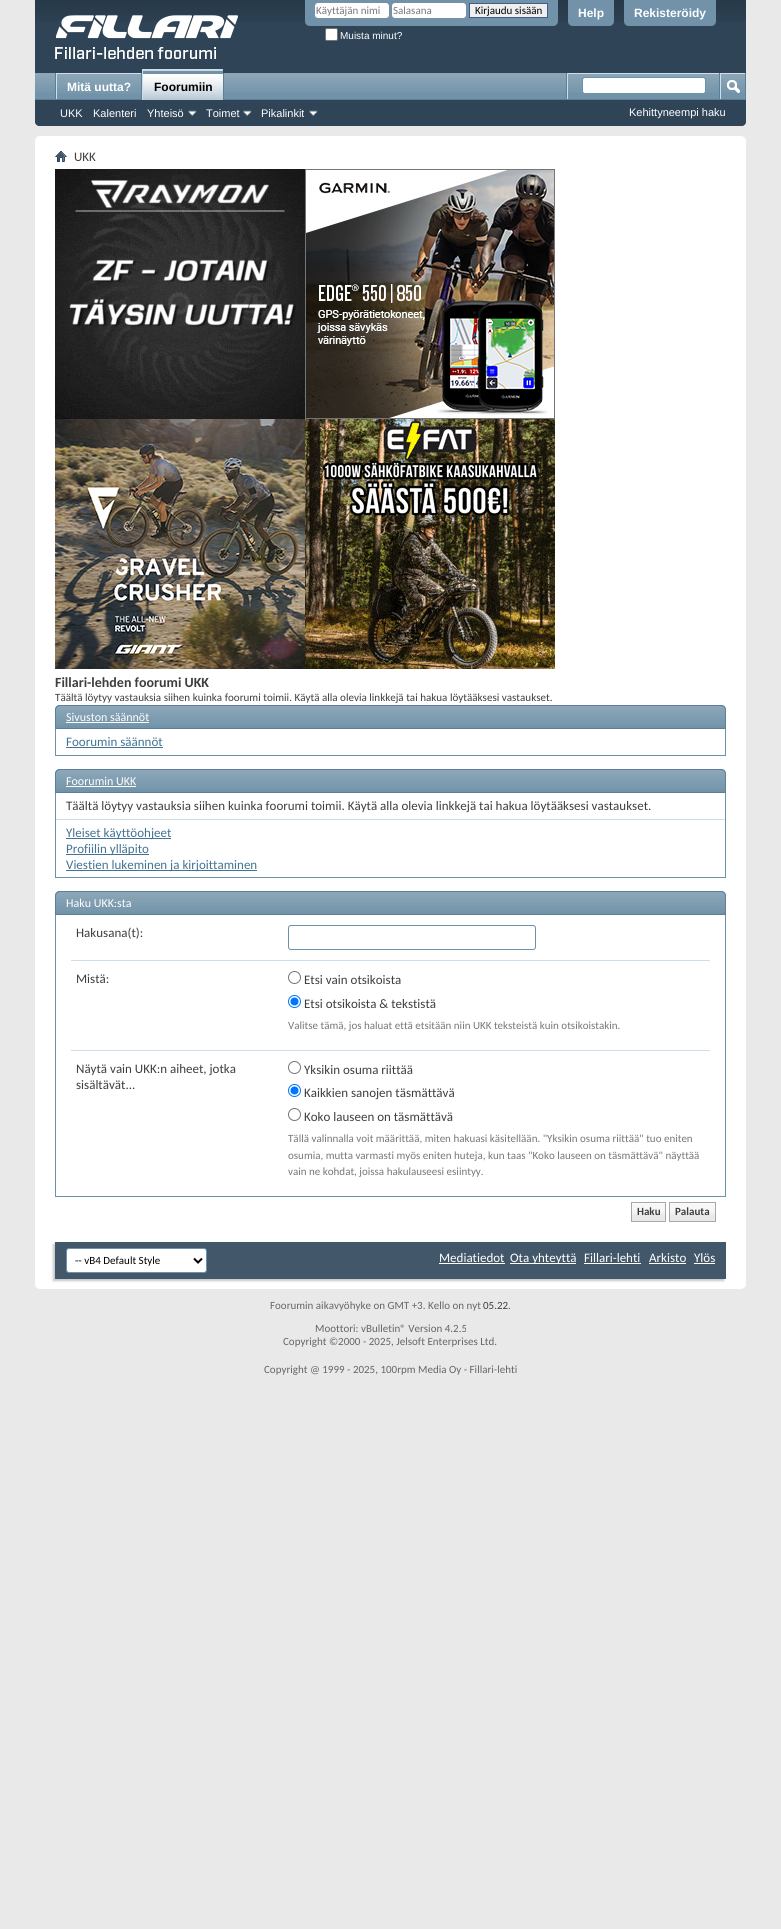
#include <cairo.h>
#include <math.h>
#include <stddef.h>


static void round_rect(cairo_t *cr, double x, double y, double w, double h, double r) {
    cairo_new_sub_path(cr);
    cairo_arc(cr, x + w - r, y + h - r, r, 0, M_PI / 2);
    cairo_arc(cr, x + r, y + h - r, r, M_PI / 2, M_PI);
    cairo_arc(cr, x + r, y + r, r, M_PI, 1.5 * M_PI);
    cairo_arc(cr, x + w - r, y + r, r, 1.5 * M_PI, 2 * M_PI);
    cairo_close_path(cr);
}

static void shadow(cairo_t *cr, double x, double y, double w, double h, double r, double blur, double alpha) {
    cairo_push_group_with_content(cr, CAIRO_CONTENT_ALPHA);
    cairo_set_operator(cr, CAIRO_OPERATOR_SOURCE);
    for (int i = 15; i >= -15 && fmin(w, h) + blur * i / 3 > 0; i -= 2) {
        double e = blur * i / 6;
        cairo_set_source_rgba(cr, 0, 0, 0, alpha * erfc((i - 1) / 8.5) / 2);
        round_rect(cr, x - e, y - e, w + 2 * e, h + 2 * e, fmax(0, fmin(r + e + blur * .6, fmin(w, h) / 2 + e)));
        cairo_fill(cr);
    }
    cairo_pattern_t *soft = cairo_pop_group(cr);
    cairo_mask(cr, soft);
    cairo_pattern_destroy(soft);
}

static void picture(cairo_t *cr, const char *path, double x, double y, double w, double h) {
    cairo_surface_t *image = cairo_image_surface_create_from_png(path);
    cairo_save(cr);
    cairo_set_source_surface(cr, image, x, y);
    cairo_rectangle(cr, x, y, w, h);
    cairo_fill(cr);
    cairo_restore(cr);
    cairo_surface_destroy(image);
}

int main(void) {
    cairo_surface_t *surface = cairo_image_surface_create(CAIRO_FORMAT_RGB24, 781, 1929);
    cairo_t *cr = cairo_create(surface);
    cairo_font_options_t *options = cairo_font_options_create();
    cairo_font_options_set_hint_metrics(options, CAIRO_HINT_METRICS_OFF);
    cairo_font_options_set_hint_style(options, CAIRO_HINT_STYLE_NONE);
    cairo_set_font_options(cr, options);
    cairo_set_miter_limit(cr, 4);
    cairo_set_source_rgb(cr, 0.914, 0.914, 0.914);
    cairo_paint(cr);
    cairo_set_source_rgb(cr, 0.184, 0.267, 0.337);
    cairo_new_path(cr);
    cairo_move_to(cr, 35, 0);
    cairo_line_to(cr, 746, 0);
    cairo_line_to(cr, 746, 121);
    cairo_curve_to(cr, 746, 124, 744, 126, 741, 126);
    cairo_line_to(cr, 40, 126);
    cairo_curve_to(cr, 37, 126, 35, 124, 35, 121);
    cairo_close_path(cr);
    cairo_fill(cr);
    picture(cr, "img1.png", 35, 0, 711, 22);
    picture(cr, "img2.png", 55, 15, 183, 44);
    cairo_set_source_rgb(cr, 0.443, 0.573, 0.659);
    cairo_new_path(cr);
    cairo_move_to(cr, 305, 0);
    cairo_line_to(cr, 558, 0);
    cairo_line_to(cr, 558, 21);
    cairo_curve_to(cr, 558, 24, 556, 26, 553, 26);
    cairo_line_to(cr, 310, 26);
    cairo_curve_to(cr, 307, 26, 305, 24, 305, 21);
    cairo_close_path(cr);
    cairo_fill(cr);
    cairo_set_source_rgb(cr, 1, 1, 1);
    round_rect(cr, 315, 3, 74, 15, 3);
    cairo_fill(cr);
    cairo_select_font_face(cr, "Carlito", CAIRO_FONT_SLANT_NORMAL, CAIRO_FONT_WEIGHT_NORMAL);
    cairo_set_font_size(cr, 11);
    cairo_set_source_rgb(cr, 0.467, 0.467, 0.467);
    cairo_move_to(cr, 316, 14);
    cairo_show_text(cr, "Käyttäjän nimi");
    cairo_set_source_rgb(cr, 1, 1, 1);
    round_rect(cr, 392, 3, 74, 15, 3);
    cairo_fill(cr);
    cairo_set_source_rgb(cr, 0.467, 0.467, 0.467);
    cairo_move_to(cr, 393, 14);
    cairo_show_text(cr, "Salasana");
    cairo_set_source_rgb(cr, 0.937, 0.937, 0.937);
    cairo_rectangle(cr, 469.5, 3.5, 78, 14);
    cairo_fill_preserve(cr);
    cairo_set_source_rgb(cr, 0.255, 0.365, 0.553);
    cairo_set_line_width(cr, 1);
    cairo_stroke(cr);
    cairo_set_source_rgb(cr, 0, 0, 0);
    cairo_move_to(cr, 475, 14);
    cairo_show_text(cr, "Kirjaudu sisään");
    cairo_set_source_rgb(cr, 1, 1, 1);
    round_rect(cr, 325.5, 28.5, 12, 12, 1.5);
    cairo_fill_preserve(cr);
    cairo_set_source_rgb(cr, 0.463, 0.463, 0.463);
    cairo_stroke(cr);
    cairo_select_font_face(cr, "Liberation Sans", CAIRO_FONT_SLANT_NORMAL, CAIRO_FONT_WEIGHT_NORMAL);
    cairo_set_font_size(cr, 10);
    cairo_set_source_rgb(cr, 1, 1, 1);
    cairo_move_to(cr, 340, 39);
    cairo_show_text(cr, "Muista minut?");
    cairo_set_source_rgb(cr, 0.443, 0.573, 0.659);
    cairo_new_path(cr);
    cairo_move_to(cr, 568, 0);
    cairo_line_to(cr, 614, 0);
    cairo_line_to(cr, 614, 21);
    cairo_curve_to(cr, 614, 24, 612, 26, 609, 26);
    cairo_line_to(cr, 573, 26);
    cairo_curve_to(cr, 570, 26, 568, 24, 568, 21);
    cairo_close_path(cr);
    cairo_fill(cr);
    cairo_select_font_face(cr, "Liberation Sans", CAIRO_FONT_SLANT_NORMAL, CAIRO_FONT_WEIGHT_BOLD);
    cairo_set_font_size(cr, 12);
    cairo_set_source_rgb(cr, 1, 1, 1);
    cairo_move_to(cr, 578, 17);
    cairo_show_text(cr, "Help");
    cairo_set_source_rgb(cr, 0.443, 0.573, 0.659);
    cairo_new_path(cr);
    cairo_move_to(cr, 624, 0);
    cairo_line_to(cr, 716, 0);
    cairo_line_to(cr, 716, 21);
    cairo_curve_to(cr, 716, 24, 714, 26, 711, 26);
    cairo_line_to(cr, 629, 26);
    cairo_curve_to(cr, 626, 26, 624, 24, 624, 21);
    cairo_close_path(cr);
    cairo_fill(cr);
    cairo_set_source_rgb(cr, 1, 1, 1);
    cairo_move_to(cr, 634, 17);
    cairo_show_text(cr, "Rekisteröidy");
    cairo_set_source_rgb(cr, 0.184, 0.267, 0.337);
    cairo_new_path(cr);
    cairo_move_to(cr, 35, 73);
    cairo_line_to(cr, 746, 73);
    cairo_line_to(cr, 746, 121);
    cairo_curve_to(cr, 746, 124, 744, 126, 741, 126);
    cairo_line_to(cr, 40, 126);
    cairo_curve_to(cr, 37, 126, 35, 124, 35, 121);
    cairo_close_path(cr);
    cairo_fill(cr);
    cairo_set_source_rgb(cr, 0.443, 0.573, 0.659);
    cairo_rectangle(cr, 35, 73, 710, 26);
    cairo_fill(cr);
    picture(cr, "img3.png", 35, 73, 710, 20);
    cairo_set_source_rgb(cr, 0.353, 0.498, 0.592);
    cairo_rectangle(cr, 141, 73, 1, 27);
    cairo_fill(cr);
    cairo_rectangle(cr, 55, 73, 1, 27);
    cairo_fill(cr);
    cairo_set_source_rgb(cr, 0.443, 0.573, 0.659);
    cairo_rectangle(cr, 57, 74, 84, 19);
    cairo_fill(cr);
    picture(cr, "img4.png", 57, 74, 84, 20);
    cairo_set_source_rgb(cr, 0.808, 0.875, 0.922);
    cairo_rectangle(cr, 56, 73, 85, 1);
    cairo_fill(cr);
    cairo_rectangle(cr, 56, 73, 1, 27);
    cairo_fill(cr);
    cairo_set_source_rgb(cr, 1, 1, 1);
    cairo_move_to(cr, 67, 91);
    cairo_show_text(cr, "Mitä uutta?");
    cairo_set_source_rgb(cr, 0.353, 0.498, 0.592);
    cairo_rectangle(cr, 223, 73, 1, 26);
    cairo_fill(cr);
    cairo_rectangle(cr, 35, 99, 711, 1);
    cairo_fill(cr);
    cairo_set_source_rgb(cr, 0.443, 0.573, 0.659);
    cairo_rectangle(cr, 143, 70, 80, 30);
    cairo_fill(cr);
    picture(cr, "img5.png", 143, 70, 80, 30);
    cairo_set_source_rgb(cr, 0.808, 0.875, 0.922);
    cairo_rectangle(cr, 142, 69, 81, 1);
    cairo_fill(cr);
    cairo_rectangle(cr, 142, 69, 1, 31);
    cairo_fill(cr);
    cairo_set_source_rgb(cr, 0, 0, 0);
    cairo_move_to(cr, 154, 91);
    cairo_show_text(cr, "Foorumiin");
    cairo_select_font_face(cr, "Liberation Sans", CAIRO_FONT_SLANT_NORMAL, CAIRO_FONT_WEIGHT_NORMAL);
    cairo_set_font_size(cr, 11);
    cairo_set_source_rgb(cr, 1, 1, 1);
    cairo_move_to(cr, 60, 117);
    cairo_show_text(cr, "UKK");
    cairo_move_to(cr, 93, 117);
    cairo_show_text(cr, "Kalenteri");
    cairo_move_to(cr, 147, 117);
    cairo_show_text(cr, "Yhteisö");
    picture(cr, "img6.png", 188, 110, 9, 6);
    cairo_move_to(cr, 206, 117);
    cairo_show_text(cr, "Toimet");
    picture(cr, "img6.png", 243, 110, 9, 6);
    cairo_move_to(cr, 261, 117);
    cairo_show_text(cr, "Pikalinkit");
    picture(cr, "img6.png", 309, 110, 9, 6);
    cairo_set_source_rgb(cr, 0.353, 0.498, 0.592);
    cairo_rectangle(cr, 566, 73, 1, 26);
    cairo_fill(cr);
    cairo_set_source_rgb(cr, 0.808, 0.875, 0.922);
    cairo_rectangle(cr, 567, 73, 152, 1);
    cairo_fill(cr);
    cairo_rectangle(cr, 567, 73, 1, 26);
    cairo_fill(cr);
    cairo_set_source_rgb(cr, 1, 1, 1);
    round_rect(cr, 582.5, 77.5, 123, 16, 2.5);
    cairo_fill_preserve(cr);
    cairo_set_source_rgb(cr, 0.42, 0.569, 0.671);
    cairo_stroke(cr);
    cairo_set_source_rgb(cr, 0.353, 0.498, 0.592);
    cairo_rectangle(cr, 745, 73, 1, 26);
    cairo_fill(cr);
    cairo_rectangle(cr, 719, 73, 1, 26);
    cairo_fill(cr);
    cairo_set_source_rgb(cr, 0.808, 0.875, 0.922);
    cairo_rectangle(cr, 720, 73, 25, 1);
    cairo_fill(cr);
    cairo_rectangle(cr, 720, 73, 1, 26);
    cairo_fill(cr);
    picture(cr, "img7.png", 727, 80, 13, 14);
    cairo_set_source_rgb(cr, 1, 1, 1);
    cairo_move_to(cr, 629, 116);
    cairo_show_text(cr, "Kehittyneempi haku");
    round_rect(cr, 35, 136, 711, 1153, 5);
    cairo_fill(cr);
    picture(cr, "img8.png", 55, 151, 12, 11);
    cairo_select_font_face(cr, "Carlito", CAIRO_FONT_SLANT_NORMAL, CAIRO_FONT_WEIGHT_NORMAL);
    cairo_set_font_size(cr, 13);
    cairo_set_source_rgb(cr, 0.243, 0.243, 0.243);
    cairo_move_to(cr, 74, 161);
    cairo_show_text(cr, "UKK");
    picture(cr, "img9.png", 55, 169, 250, 250);
    picture(cr, "img10.png", 305, 169, 250, 250);
    picture(cr, "img11.png", 55, 419, 250, 250);
    picture(cr, "img12.png", 305, 419, 250, 250);
    cairo_select_font_face(cr, "Carlito", CAIRO_FONT_SLANT_NORMAL, CAIRO_FONT_WEIGHT_BOLD);
    cairo_set_font_size(cr, 14);
    cairo_move_to(cr, 55, 687);
    cairo_show_text(cr, "Fillari-lehden foorumi UKK");
    cairo_select_font_face(cr, "Carlito", CAIRO_FONT_SLANT_NORMAL, CAIRO_FONT_WEIGHT_NORMAL);
    cairo_set_font_size(cr, 11.05);
    cairo_move_to(cr, 55, 701);
    cairo_show_text(cr, "Täältä löytyy vastauksia siihen kuinka foorumi toimii. Käytä alla olevia linkkejä tai hakua löytääksesi vastaukset.");
    cairo_set_source_rgb(cr, 0.443, 0.573, 0.659);
    cairo_new_path(cr);
    cairo_move_to(cr, 60, 705);
    cairo_line_to(cr, 721, 705);
    cairo_curve_to(cr, 724, 705, 726, 707, 726, 710);
    cairo_line_to(cr, 726, 729);
    cairo_line_to(cr, 55, 729);
    cairo_line_to(cr, 55, 710);
    cairo_curve_to(cr, 55, 707, 57, 705, 60, 705);
    cairo_close_path(cr);
    cairo_fill(cr);
    picture(cr, "img13.png", 55, 706, 671, 20);
    cairo_new_path(cr);
    cairo_move_to(cr, 60, 705.5);
    cairo_line_to(cr, 721, 705.5);
    cairo_curve_to(cr, 723.5, 705.5, 725.5, 707.5, 725.5, 710);
    cairo_line_to(cr, 725.5, 728.5);
    cairo_line_to(cr, 55.5, 728.5);
    cairo_line_to(cr, 55.5, 710);
    cairo_curve_to(cr, 55.5, 707.5, 57.5, 705.5, 60, 705.5);
    cairo_close_path(cr);
    cairo_set_source_rgb(cr, 0.353, 0.498, 0.592);
    cairo_stroke(cr);
    cairo_set_font_size(cr, 12);
    cairo_set_source_rgb(cr, 1, 1, 1);
    cairo_move_to(cr, 66, 721);
    cairo_show_text(cr, "Sivuston säännöt");
    cairo_rectangle(cr, 66, 722, 83, 1);
    cairo_fill(cr);
    cairo_set_source_rgb(cr, 0.42, 0.569, 0.671);
    cairo_rectangle(cr, 725, 729, 1, 27);
    cairo_fill(cr);
    cairo_rectangle(cr, 55, 755, 671, 1);
    cairo_fill(cr);
    cairo_rectangle(cr, 55, 729, 1, 27);
    cairo_fill(cr);
    cairo_set_font_size(cr, 13);
    cairo_set_source_rgb(cr, 0.255, 0.451, 0.58);
    cairo_move_to(cr, 66, 746);
    cairo_show_text(cr, "Foorumin säännöt");
    cairo_rectangle(cr, 66, 747, 97, 1);
    cairo_fill(cr);
    cairo_set_source_rgb(cr, 0.443, 0.573, 0.659);
    cairo_new_path(cr);
    cairo_move_to(cr, 60, 769);
    cairo_line_to(cr, 721, 769);
    cairo_curve_to(cr, 724, 769, 726, 771, 726, 774);
    cairo_line_to(cr, 726, 793);
    cairo_line_to(cr, 55, 793);
    cairo_line_to(cr, 55, 774);
    cairo_curve_to(cr, 55, 771, 57, 769, 60, 769);
    cairo_close_path(cr);
    cairo_fill(cr);
    picture(cr, "img13.png", 55, 770, 671, 20);
    cairo_new_path(cr);
    cairo_move_to(cr, 60, 769.5);
    cairo_line_to(cr, 721, 769.5);
    cairo_curve_to(cr, 723.5, 769.5, 725.5, 771.5, 725.5, 774);
    cairo_line_to(cr, 725.5, 792.5);
    cairo_line_to(cr, 55.5, 792.5);
    cairo_line_to(cr, 55.5, 774);
    cairo_curve_to(cr, 55.5, 771.5, 57.5, 769.5, 60, 769.5);
    cairo_close_path(cr);
    cairo_set_source_rgb(cr, 0.353, 0.498, 0.592);
    cairo_stroke(cr);
    cairo_set_font_size(cr, 12);
    cairo_set_source_rgb(cr, 1, 1, 1);
    cairo_move_to(cr, 66, 785);
    cairo_show_text(cr, "Foorumin UKK");
    cairo_rectangle(cr, 66, 786, 70, 1);
    cairo_fill(cr);
    cairo_set_source_rgb(cr, 0.42, 0.569, 0.671);
    cairo_rectangle(cr, 725, 793, 1, 85);
    cairo_fill(cr);
    cairo_rectangle(cr, 55, 877, 671, 1);
    cairo_fill(cr);
    cairo_rectangle(cr, 55, 793, 1, 85);
    cairo_fill(cr);
    cairo_set_font_size(cr, 13);
    cairo_set_source_rgb(cr, 0.243, 0.243, 0.243);
    cairo_move_to(cr, 66, 810);
    cairo_show_text(cr, "Täältä löytyy vastauksia siihen kuinka foorumi toimii. Käytä alla olevia linkkejä tai hakua löytääksesi vastaukset.");
    cairo_set_source_rgb(cr, 0.808, 0.875, 0.922);
    cairo_rectangle(cr, 56, 819, 669, 1);
    cairo_fill(cr);
    cairo_set_source_rgb(cr, 0.255, 0.451, 0.58);
    cairo_rectangle(cr, 66, 838, 105, 1);
    cairo_fill(cr);
    cairo_move_to(cr, 66, 837);
    cairo_show_text(cr, "Yleiset käyttöohjeet");
    cairo_rectangle(cr, 66, 854, 83, 1);
    cairo_fill(cr);
    cairo_move_to(cr, 66, 853);
    cairo_show_text(cr, "Profiilin ylläpito");
    cairo_rectangle(cr, 66, 870, 191, 1);
    cairo_fill(cr);
    cairo_move_to(cr, 66, 869);
    cairo_show_text(cr, "Viestien lukeminen ja kirjoittaminen");
    cairo_set_source_rgb(cr, 0.443, 0.573, 0.659);
    cairo_new_path(cr);
    cairo_move_to(cr, 60, 891);
    cairo_line_to(cr, 721, 891);
    cairo_curve_to(cr, 724, 891, 726, 893, 726, 896);
    cairo_line_to(cr, 726, 915);
    cairo_line_to(cr, 55, 915);
    cairo_line_to(cr, 55, 896);
    cairo_curve_to(cr, 55, 893, 57, 891, 60, 891);
    cairo_close_path(cr);
    cairo_fill(cr);
    picture(cr, "img13.png", 55, 892, 671, 20);
    cairo_new_path(cr);
    cairo_move_to(cr, 60, 891.5);
    cairo_line_to(cr, 721, 891.5);
    cairo_curve_to(cr, 723.5, 891.5, 725.5, 893.5, 725.5, 896);
    cairo_line_to(cr, 725.5, 914.5);
    cairo_line_to(cr, 55.5, 914.5);
    cairo_line_to(cr, 55.5, 896);
    cairo_curve_to(cr, 55.5, 893.5, 57.5, 891.5, 60, 891.5);
    cairo_close_path(cr);
    cairo_set_source_rgb(cr, 0.353, 0.498, 0.592);
    cairo_stroke(cr);
    cairo_set_font_size(cr, 12);
    cairo_set_source_rgb(cr, 1, 1, 1);
    cairo_move_to(cr, 66, 907);
    cairo_show_text(cr, "Haku UKK:sta");
    cairo_set_source_rgb(cr, 0.42, 0.569, 0.671);
    cairo_rectangle(cr, 725, 915, 1, 282);
    cairo_fill(cr);
    cairo_rectangle(cr, 55, 1196, 671, 1);
    cairo_fill(cr);
    cairo_rectangle(cr, 55, 915, 1, 282);
    cairo_fill(cr);
    cairo_set_font_size(cr, 13);
    cairo_set_source_rgb(cr, 0.243, 0.243, 0.243);
    cairo_move_to(cr, 76, 937);
    cairo_show_text(cr, "Hakusana(t):");
    round_rect(cr, 288.5, 925.5, 247, 24, 2.5);
    cairo_set_source_rgb(cr, 0.42, 0.569, 0.671);
    cairo_stroke(cr);
    cairo_set_source_rgb(cr, 0.808, 0.875, 0.922);
    cairo_rectangle(cr, 71, 960, 639, 1);
    cairo_fill(cr);
    cairo_set_source_rgb(cr, 0.243, 0.243, 0.243);
    cairo_move_to(cr, 76, 983);
    cairo_show_text(cr, "Mistä:");
    cairo_new_path(cr);
    cairo_arc(cr, 294.5, 977.5, 6, 0, 2 * M_PI);
    cairo_set_source_rgb(cr, 0.463, 0.463, 0.463);
    cairo_stroke(cr);
    cairo_set_source_rgb(cr, 0.243, 0.243, 0.243);
    cairo_move_to(cr, 304, 984);
    cairo_show_text(cr, "Etsi vain otsikoista");
    cairo_new_path(cr);
    cairo_arc(cr, 294.5, 1001.5, 6, 0, 2 * M_PI);
    cairo_set_source_rgb(cr, 0, 0.459, 1);
    cairo_stroke(cr);
    cairo_arc(cr, 294.5, 1001.5, 4, 0, 2 * M_PI);
    cairo_fill(cr);
    cairo_set_source_rgb(cr, 0.243, 0.243, 0.243);
    cairo_move_to(cr, 304, 1008);
    cairo_show_text(cr, "Etsi otsikoista & tekstistä");
    cairo_set_font_size(cr, 11);
    cairo_set_source_rgb(cr, 0.467, 0.467, 0.467);
    cairo_move_to(cr, 288, 1029);
    cairo_show_text(cr, "Valitse tämä, jos haluat että etsitään niin UKK teksteistä kuin otsikoistakin.");
    cairo_set_source_rgb(cr, 0.808, 0.875, 0.922);
    cairo_rectangle(cr, 71, 1050, 639, 1);
    cairo_fill(cr);
    cairo_set_font_size(cr, 13);
    cairo_set_source_rgb(cr, 0.243, 0.243, 0.243);
    cairo_move_to(cr, 76, 1073);
    cairo_show_text(cr, "Näytä vain UKK:n aiheet, jotka");
    cairo_move_to(cr, 76, 1089);
    cairo_show_text(cr, "sisältävät...");
    cairo_new_path(cr);
    cairo_arc(cr, 294.5, 1067.5, 6, 0, 2 * M_PI);
    cairo_set_source_rgb(cr, 0.463, 0.463, 0.463);
    cairo_stroke(cr);
    cairo_set_source_rgb(cr, 0.243, 0.243, 0.243);
    cairo_move_to(cr, 304, 1074);
    cairo_show_text(cr, "Yksikin osuma riittää");
    cairo_new_path(cr);
    cairo_arc(cr, 294.5, 1090.5, 6, 0, 2 * M_PI);
    cairo_set_source_rgb(cr, 0, 0.459, 1);
    cairo_stroke(cr);
    cairo_arc(cr, 294.5, 1090.5, 4, 0, 2 * M_PI);
    cairo_fill(cr);
    cairo_set_source_rgb(cr, 0.243, 0.243, 0.243);
    cairo_move_to(cr, 304, 1097);
    cairo_show_text(cr, "Kaikkien sanojen täsmättävä");
    cairo_new_path(cr);
    cairo_arc(cr, 294.5, 1114.5, 6, 0, 2 * M_PI);
    cairo_set_source_rgb(cr, 0.463, 0.463, 0.463);
    cairo_stroke(cr);
    cairo_set_source_rgb(cr, 0.243, 0.243, 0.243);
    cairo_move_to(cr, 304, 1121);
    cairo_show_text(cr, "Koko lauseen on täsmättävä");
    cairo_set_font_size(cr, 11);
    cairo_set_source_rgb(cr, 0.467, 0.467, 0.467);
    cairo_move_to(cr, 288, 1142);
    cairo_show_text(cr, "Tällä valinnalla voit määrittää, miten hakuasi käsitellään. \"Yksikin osuma riittää\" tuo eniten");
    cairo_move_to(cr, 288, 1159);
    cairo_show_text(cr, "osumia, mutta varmasti myös eniten huteja, kun taas \"Koko lauseen on täsmättävä\" näyttää");
    cairo_move_to(cr, 288, 1175);
    cairo_show_text(cr, "vain ne kohdat, joissa hakulauseesi esiintyy.");
    cairo_set_source_rgb(cr, 0.914, 0.914, 0.914);
    cairo_rectangle(cr, 632, 1203, 33, 18);
    cairo_fill(cr);
    picture(cr, "img14.png", 632, 1203, 33, 12);
    cairo_rectangle(cr, 631.5, 1202.5, 34, 19);
    cairo_set_source_rgb(cr, 0.659, 0.659, 0.659);
    cairo_stroke(cr);
    cairo_select_font_face(cr, "Carlito", CAIRO_FONT_SLANT_NORMAL, CAIRO_FONT_WEIGHT_BOLD);
    cairo_set_source_rgb(cr, 0.243, 0.243, 0.243);
    cairo_move_to(cr, 637, 1215);
    cairo_show_text(cr, "Haku");
    cairo_set_source_rgb(cr, 0.914, 0.914, 0.914);
    cairo_rectangle(cr, 670, 1203, 45, 18);
    cairo_fill(cr);
    picture(cr, "img15.png", 670, 1203, 45, 12);
    cairo_rectangle(cr, 669.5, 1202.5, 46, 19);
    cairo_set_source_rgb(cr, 0.659, 0.659, 0.659);
    cairo_stroke(cr);
    cairo_set_source_rgb(cr, 0.243, 0.243, 0.243);
    cairo_move_to(cr, 675, 1215);
    cairo_show_text(cr, "Palauta");
    cairo_set_source_rgb(cr, 0.784, 0.784, 0.784);
    shadow(cr, 53, 1244, 671, 37, 0, 1, 1);
    cairo_set_source_rgb(cr, 0.259, 0.341, 0.412);
    cairo_rectangle(cr, 55, 1242, 671, 37);
    cairo_fill(cr);
    cairo_set_source_rgb(cr, 1, 1, 1);
    round_rect(cr, 66.5, 1248.5, 140, 24, 2.5);
    cairo_fill_preserve(cr);
    cairo_set_source_rgb(cr, 0.42, 0.569, 0.671);
    cairo_stroke(cr);
    cairo_new_path(cr);
    cairo_move_to(cr, 194, 1258.5);
    cairo_line_to(cr, 198, 1262.5);
    cairo_line_to(cr, 202, 1258.5);
    cairo_set_source_rgb(cr, 0, 0, 0);
    cairo_set_line_width(cr, 2);
    cairo_stroke(cr);
    cairo_select_font_face(cr, "Carlito", CAIRO_FONT_SLANT_NORMAL, CAIRO_FONT_WEIGHT_NORMAL);
    cairo_move_to(cr, 75, 1264);
    cairo_show_text(cr, "-- vB4 Default Style");
    cairo_set_font_size(cr, 13);
    cairo_set_source_rgb(cr, 1, 1, 1);
    cairo_move_to(cr, 439, 1262);
    cairo_show_text(cr, "Mediatiedot");
    cairo_rectangle(cr, 439, 1263, 66, 1);
    cairo_fill(cr);
    cairo_rectangle(cr, 510, 1263, 66, 1);
    cairo_fill(cr);
    cairo_move_to(cr, 510, 1262);
    cairo_show_text(cr, "Ota yhteyttä");
    cairo_move_to(cr, 584, 1262);
    cairo_show_text(cr, "Fillari-lehti");
    cairo_rectangle(cr, 584, 1263, 57, 1);
    cairo_fill(cr);
    cairo_move_to(cr, 649, 1262);
    cairo_show_text(cr, "Arkisto");
    cairo_rectangle(cr, 649, 1263, 37, 1);
    cairo_fill(cr);
    cairo_move_to(cr, 694, 1262);
    cairo_show_text(cr, "Ylös");
    cairo_rectangle(cr, 694, 1263, 21, 1);
    cairo_fill(cr);
    cairo_set_font_size(cr, 11);
    cairo_set_source_rgb(cr, 0.4, 0.4, 0.4);
    cairo_move_to(cr, 270, 1309);
    cairo_show_text(cr, "Foorumin aikavyöhyke on GMT +3. Kello on nyt");
    cairo_set_source_rgb(cr, 0.243, 0.243, 0.243);
    cairo_move_to(cr, 483, 1309);
    cairo_show_text(cr, "05.22");
    cairo_set_source_rgb(cr, 0.4, 0.4, 0.4);
    cairo_move_to(cr, 508, 1309);
    cairo_show_text(cr, ".");
    cairo_move_to(cr, 315, 1332);
    cairo_show_text(cr, "Moottori: vBulletin® Version 4.2.5");
    cairo_move_to(cr, 283, 1345);
    cairo_show_text(cr, "Copyright ©2000 - 2025, Jelsoft Enterprises Ltd.");
    cairo_move_to(cr, 264, 1373);
    cairo_show_text(cr, "Copyright @ 1999 - 2025, 100rpm Media Oy - Fillari-lehti");
    cairo_surface_write_to_png(surface, "page.png");
    cairo_font_options_destroy(options);
    cairo_destroy(cr);
    cairo_surface_destroy(surface);
    return 0;
}
